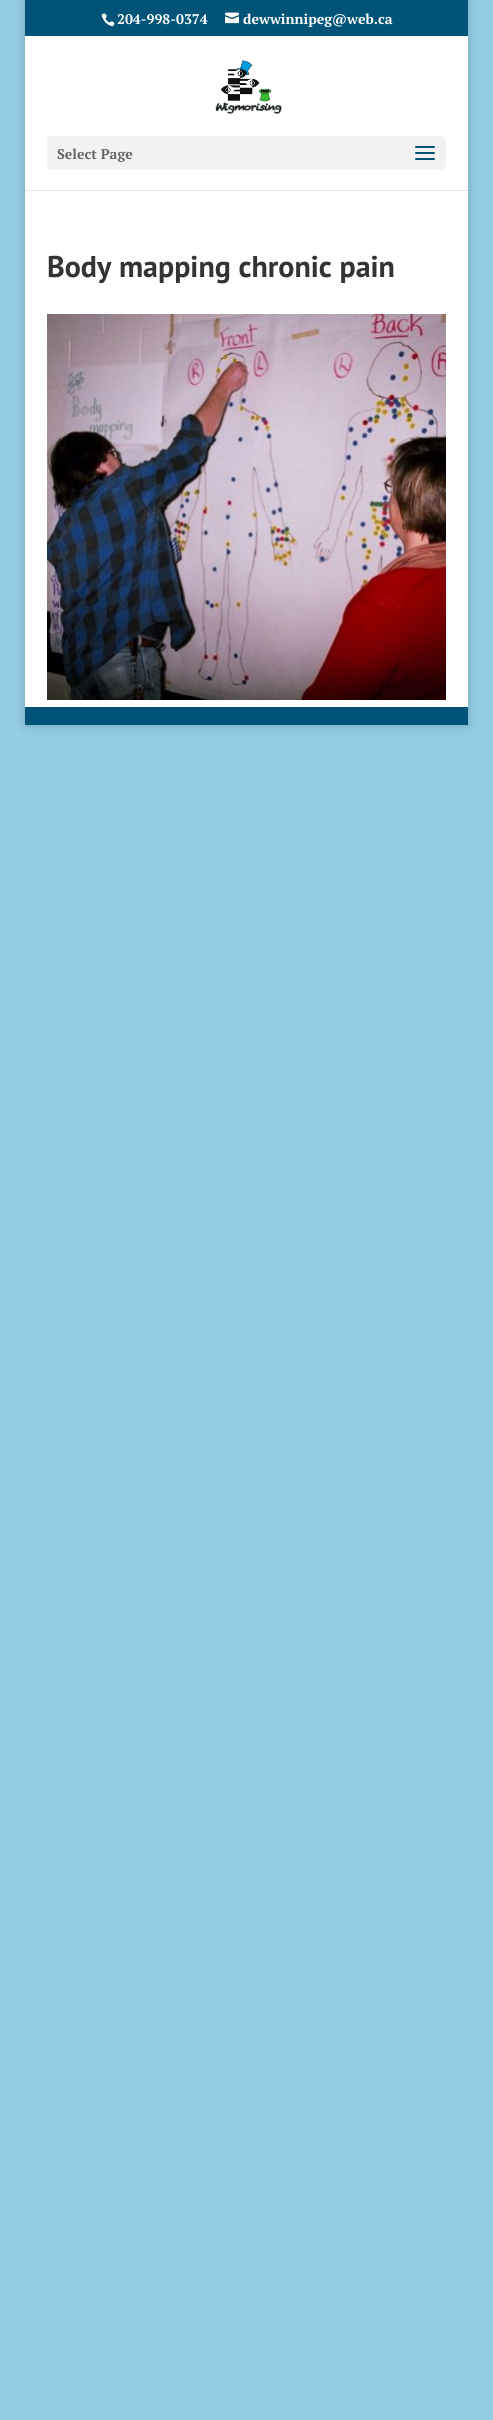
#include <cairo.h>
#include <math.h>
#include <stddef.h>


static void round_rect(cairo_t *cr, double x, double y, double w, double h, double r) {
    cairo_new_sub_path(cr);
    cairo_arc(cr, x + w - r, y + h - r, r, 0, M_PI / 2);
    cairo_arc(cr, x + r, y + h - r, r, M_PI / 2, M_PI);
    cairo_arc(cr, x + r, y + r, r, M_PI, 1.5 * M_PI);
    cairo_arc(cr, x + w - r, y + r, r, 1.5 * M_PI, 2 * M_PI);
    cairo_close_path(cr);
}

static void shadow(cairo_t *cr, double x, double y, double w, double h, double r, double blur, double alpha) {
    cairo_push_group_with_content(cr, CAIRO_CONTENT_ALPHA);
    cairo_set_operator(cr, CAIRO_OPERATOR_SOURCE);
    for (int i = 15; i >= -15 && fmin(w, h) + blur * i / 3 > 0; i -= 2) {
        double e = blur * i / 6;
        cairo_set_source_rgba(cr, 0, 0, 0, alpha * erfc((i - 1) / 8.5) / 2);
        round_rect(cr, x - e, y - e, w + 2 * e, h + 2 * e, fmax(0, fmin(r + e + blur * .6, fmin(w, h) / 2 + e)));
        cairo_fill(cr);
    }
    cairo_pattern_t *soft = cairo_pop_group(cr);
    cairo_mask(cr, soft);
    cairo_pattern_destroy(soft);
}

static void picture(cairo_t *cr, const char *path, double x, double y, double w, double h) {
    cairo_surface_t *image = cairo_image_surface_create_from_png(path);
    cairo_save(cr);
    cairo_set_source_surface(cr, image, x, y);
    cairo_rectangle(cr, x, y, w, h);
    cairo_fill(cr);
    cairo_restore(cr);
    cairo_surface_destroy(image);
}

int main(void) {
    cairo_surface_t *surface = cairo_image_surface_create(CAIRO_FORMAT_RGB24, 493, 2420);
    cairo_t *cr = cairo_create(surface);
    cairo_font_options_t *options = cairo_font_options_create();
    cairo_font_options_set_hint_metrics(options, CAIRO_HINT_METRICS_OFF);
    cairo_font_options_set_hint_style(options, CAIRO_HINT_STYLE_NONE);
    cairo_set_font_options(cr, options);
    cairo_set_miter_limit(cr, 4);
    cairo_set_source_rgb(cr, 0.573, 0.8, 0.898);
    cairo_paint(cr);
    cairo_set_source_rgb(cr, 0, 0, 0);
    shadow(cr, 25, 0, 443, 725, 0, 5, 0.2);
    cairo_set_source_rgb(cr, 0.004, 0.329, 0.471);
    cairo_rectangle(cr, 25, 0, 443, 36);
    cairo_fill(cr);
    picture(cr, "img1.png", 101, 13, 14, 14);
    cairo_select_font_face(cr, "PT Serif", CAIRO_FONT_SLANT_NORMAL, CAIRO_FONT_WEIGHT_BOLD);
    cairo_set_font_size(cr, 14);
    cairo_set_source_rgb(cr, 1, 1, 1);
    cairo_move_to(cr, 117, 24);
    cairo_show_text(cr, "204-998-0374");
    picture(cr, "img2.png", 225, 12, 14, 12);
    cairo_move_to(cr, 243, 24);
    cairo_show_text(cr, "dewwinnipeg@web.ca");
    cairo_set_source_rgb(cr, 0.902, 0.902, 0.902);
    cairo_rectangle(cr, 25, 190, 443, 1);
    cairo_fill(cr);
    cairo_set_source_rgb(cr, 1, 1, 1);
    cairo_rectangle(cr, 25, 36, 443, 154);
    cairo_fill(cr);
    picture(cr, "img3.png", 215, 60, 67, 55);
    cairo_set_source_rgb(cr, 0.949, 0.949, 0.949);
    round_rect(cr, 47, 136, 399, 34, 5);
    cairo_fill(cr);
    cairo_set_source_rgb(cr, 0.4, 0.4, 0.4);
    cairo_move_to(cr, 57, 159);
    cairo_show_text(cr, "Select Page");
    picture(cr, "img4.png", 415, 146, 20, 14);
    cairo_set_source_rgb(cr, 1, 1, 1);
    cairo_rectangle(cr, 25, 191, 443, 516);
    cairo_fill(cr);
    cairo_select_font_face(cr, "PT Sans", CAIRO_FONT_SLANT_NORMAL, CAIRO_FONT_WEIGHT_BOLD);
    cairo_set_font_size(cr, 30);
    cairo_set_source_rgb(cr, 0.2, 0.2, 0.2);
    cairo_move_to(cr, 47, 277);
    cairo_show_text(cr, "Body mapping chronic pain");
    picture(cr, "img5.png", 47, 314, 399, 386);
    cairo_set_source_rgb(cr, 0.004, 0.329, 0.471);
    cairo_rectangle(cr, 25, 707, 443, 18);
    cairo_fill(cr);
    cairo_surface_write_to_png(surface, "page.png");
    cairo_font_options_destroy(options);
    cairo_destroy(cr);
    cairo_surface_destroy(surface);
    return 0;
}
